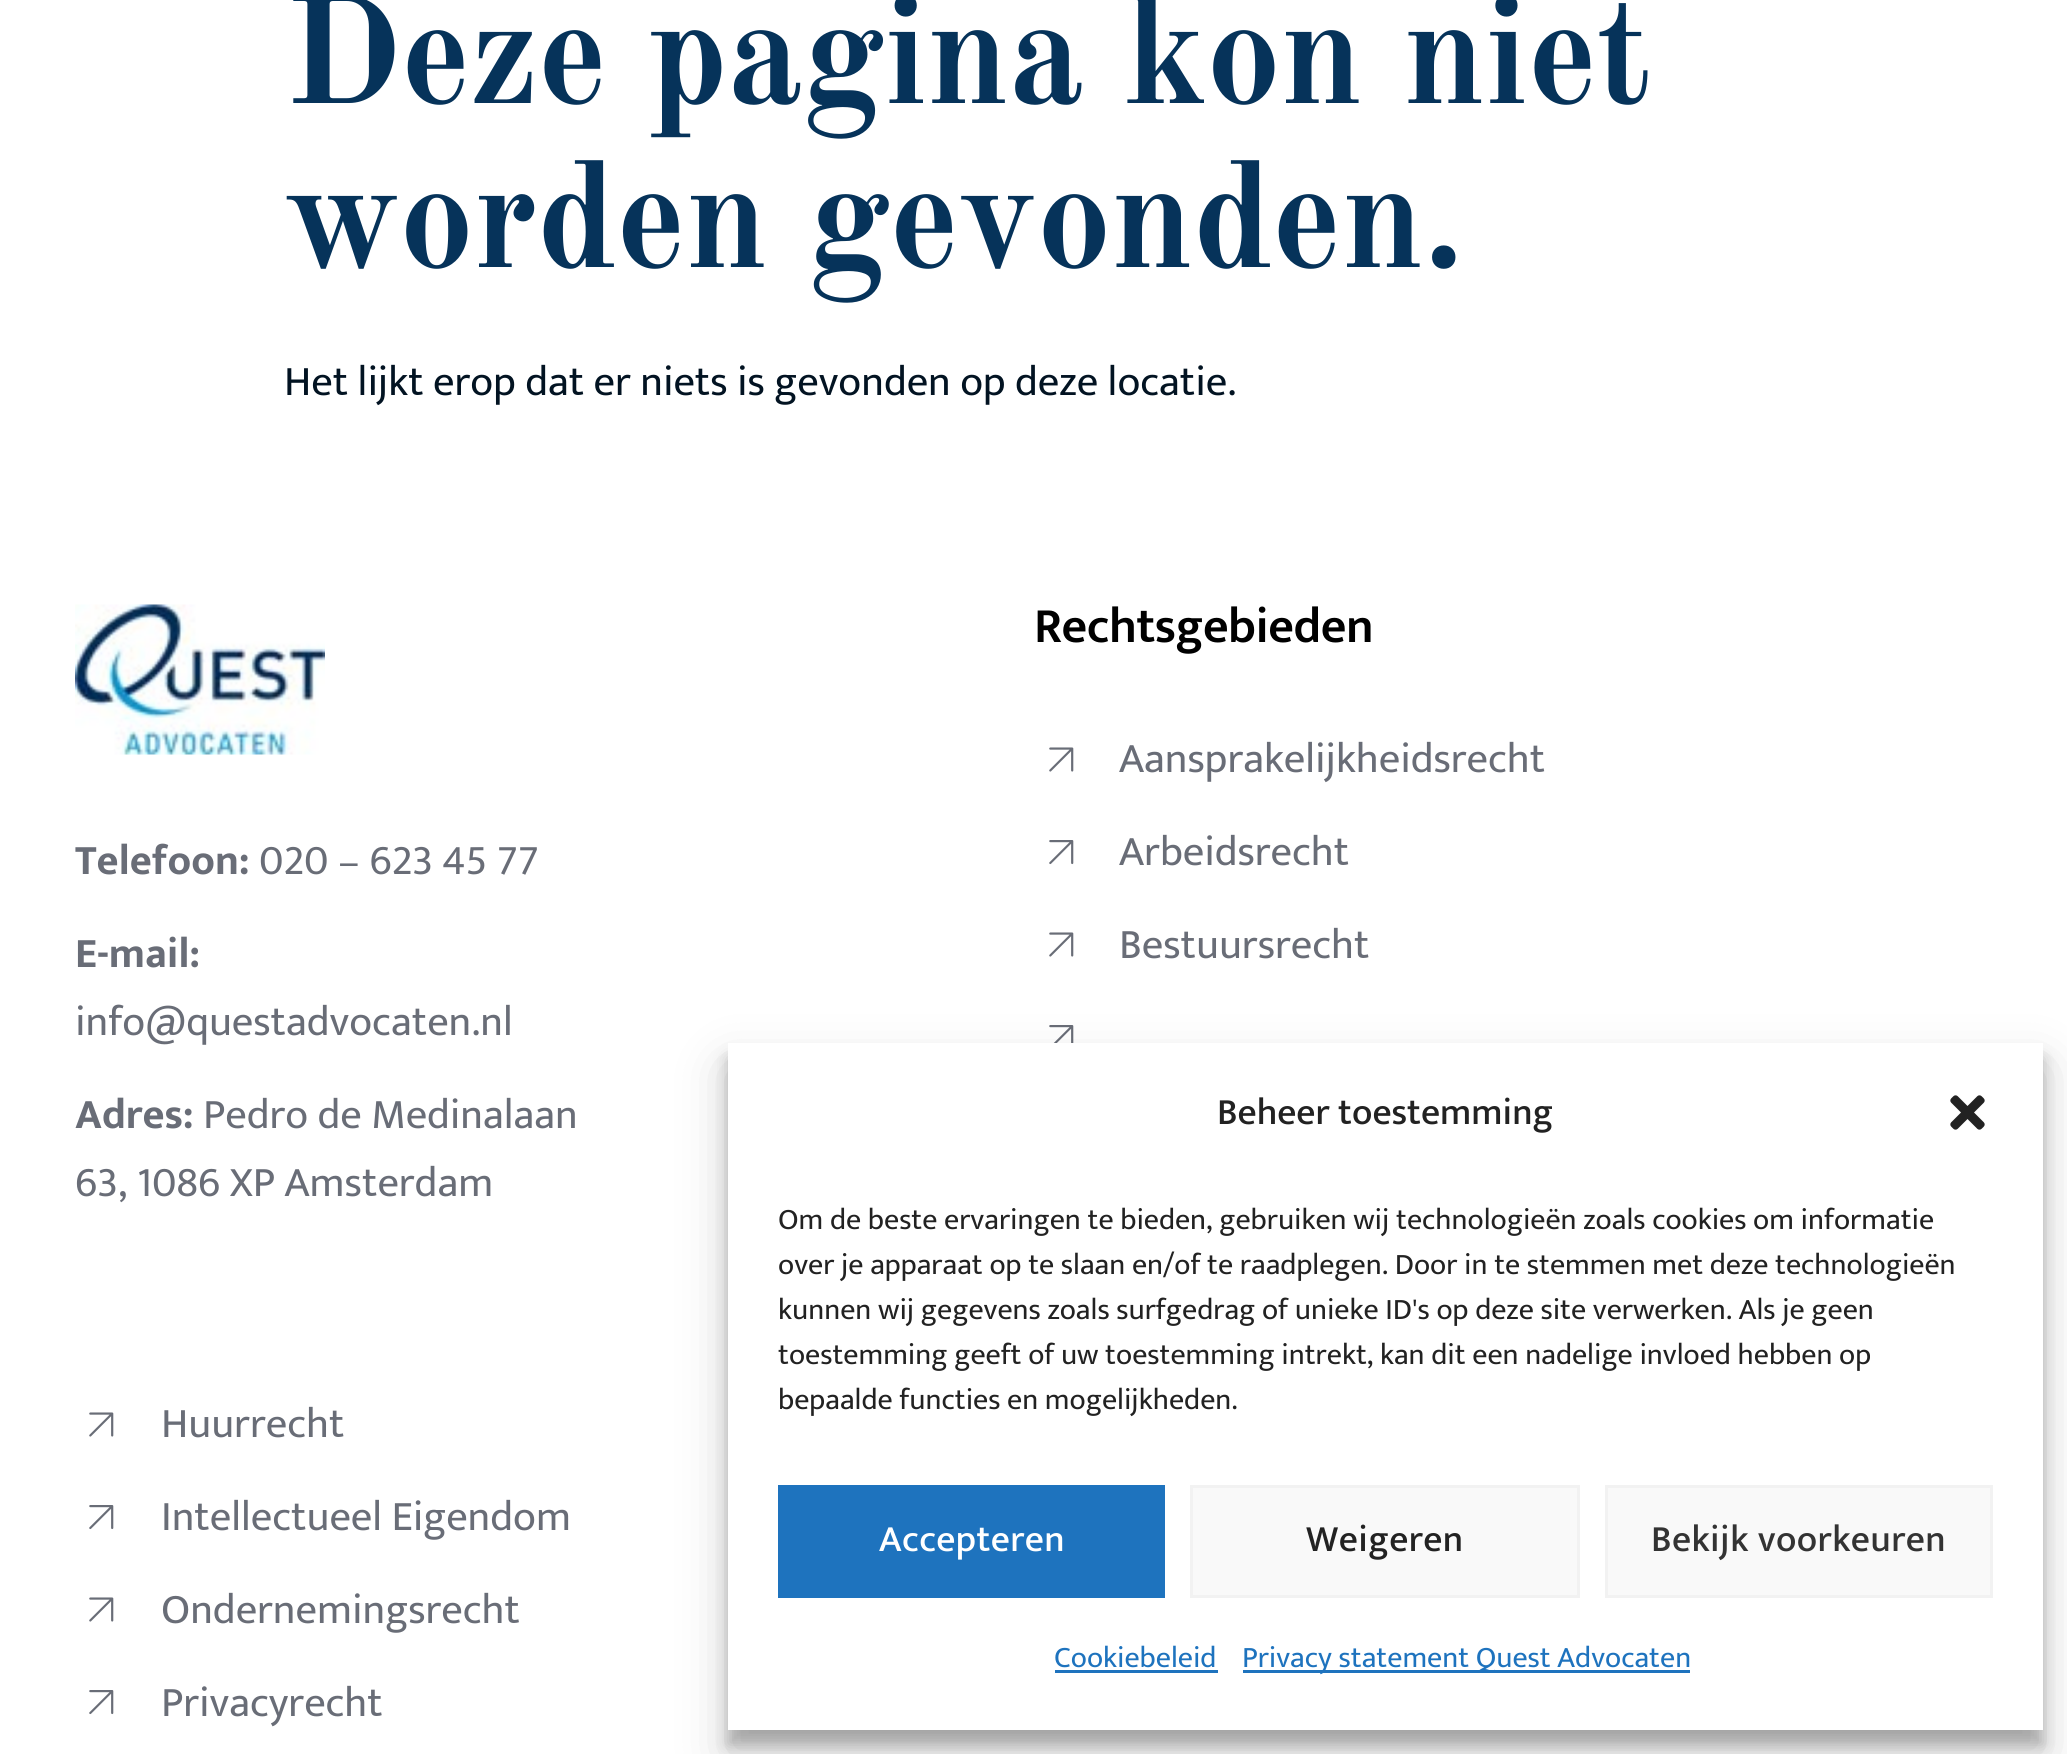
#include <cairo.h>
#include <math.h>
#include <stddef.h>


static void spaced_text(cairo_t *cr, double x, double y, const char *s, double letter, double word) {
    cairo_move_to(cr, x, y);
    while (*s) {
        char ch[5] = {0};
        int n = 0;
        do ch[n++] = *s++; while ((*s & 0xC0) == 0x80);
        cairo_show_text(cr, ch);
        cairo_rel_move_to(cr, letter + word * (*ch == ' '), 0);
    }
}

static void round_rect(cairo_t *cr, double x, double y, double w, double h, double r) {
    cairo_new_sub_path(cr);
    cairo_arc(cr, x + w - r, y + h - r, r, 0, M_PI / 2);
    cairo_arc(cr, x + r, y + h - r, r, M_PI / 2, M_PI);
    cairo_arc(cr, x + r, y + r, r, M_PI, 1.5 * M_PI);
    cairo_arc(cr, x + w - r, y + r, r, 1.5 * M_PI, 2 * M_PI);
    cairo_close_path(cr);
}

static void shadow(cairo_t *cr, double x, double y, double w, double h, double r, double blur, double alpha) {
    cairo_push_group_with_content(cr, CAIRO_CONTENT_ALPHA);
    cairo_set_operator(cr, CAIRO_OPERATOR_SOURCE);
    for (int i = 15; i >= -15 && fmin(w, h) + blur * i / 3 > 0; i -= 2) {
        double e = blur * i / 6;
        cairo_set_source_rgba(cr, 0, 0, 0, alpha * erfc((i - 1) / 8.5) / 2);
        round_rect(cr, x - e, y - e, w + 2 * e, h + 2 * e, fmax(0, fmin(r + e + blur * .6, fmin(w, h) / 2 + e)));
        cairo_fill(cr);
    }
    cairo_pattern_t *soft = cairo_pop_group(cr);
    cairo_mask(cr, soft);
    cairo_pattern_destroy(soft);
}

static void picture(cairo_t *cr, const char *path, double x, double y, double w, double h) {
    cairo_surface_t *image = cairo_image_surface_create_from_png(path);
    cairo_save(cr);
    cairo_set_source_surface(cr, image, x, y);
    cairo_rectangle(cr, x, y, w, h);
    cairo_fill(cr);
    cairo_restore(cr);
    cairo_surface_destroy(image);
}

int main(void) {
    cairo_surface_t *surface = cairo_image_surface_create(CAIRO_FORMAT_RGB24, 2067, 1754);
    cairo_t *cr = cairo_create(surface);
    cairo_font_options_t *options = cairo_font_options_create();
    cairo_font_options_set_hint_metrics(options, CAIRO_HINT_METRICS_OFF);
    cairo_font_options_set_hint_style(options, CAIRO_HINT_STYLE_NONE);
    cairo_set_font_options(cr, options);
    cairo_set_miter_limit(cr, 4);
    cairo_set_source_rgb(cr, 1, 1, 1);
    cairo_paint(cr);
    cairo_select_font_face(cr, "Old Standard TT", CAIRO_FONT_SLANT_NORMAL, CAIRO_FONT_WEIGHT_BOLD);
    cairo_set_font_size(cr, 150);
    cairo_set_source_rgb(cr, 0.024, 0.2, 0.353);
    spaced_text(cr, 284, 103, "Deze pagina kon niet", -1.5, 0);
    spaced_text(cr, 284, 267, "worden gevonden.", -1.5, 0);
    cairo_select_font_face(cr, "Mukta", CAIRO_FONT_SLANT_NORMAL, CAIRO_FONT_WEIGHT_NORMAL);
    cairo_set_font_size(cr, 42.5);
    cairo_set_source_rgb(cr, 0.008, 0.075, 0.133);
    cairo_move_to(cr, 284, 395);
    cairo_show_text(cr, "Het lijkt erop dat er niets is gevonden op deze locatie.");
    cairo_select_font_face(cr, "Mukta SemiBold", CAIRO_FONT_SLANT_NORMAL, CAIRO_FONT_WEIGHT_NORMAL);
    cairo_set_font_size(cr, 50);
    cairo_set_source_rgb(cr, 0, 0, 0);
    spaced_text(cr, 1034, 642, "Rechtsgebieden", -0.5, 0);
    picture(cr, "img1.png", 1049, 747, 25, 25);
    cairo_select_font_face(cr, "Mukta", CAIRO_FONT_SLANT_NORMAL, CAIRO_FONT_WEIGHT_NORMAL);
    cairo_set_font_size(cr, 42.5);
    cairo_set_source_rgb(cr, 0.412, 0.427, 0.467);
    cairo_move_to(cr, 1119, 772);
    cairo_show_text(cr, "Aansprakelijkheidsrecht");
    picture(cr, "img2.png", 1049, 840, 25, 25);
    cairo_move_to(cr, 1119, 865);
    cairo_show_text(cr, "Arbeidsrecht");
    picture(cr, "img1.png", 1049, 932, 25, 25);
    cairo_move_to(cr, 1119, 958);
    cairo_show_text(cr, "Bestuursrecht");
    picture(cr, "img3.png", 1049, 1025, 25, 18);
    picture(cr, "img4.png", 75, 604, 250, 151);
    cairo_select_font_face(cr, "Mukta", CAIRO_FONT_SLANT_NORMAL, CAIRO_FONT_WEIGHT_BOLD);
    cairo_move_to(cr, 75, 874);
    cairo_show_text(cr, "Telefoon:");
    cairo_select_font_face(cr, "Mukta", CAIRO_FONT_SLANT_NORMAL, CAIRO_FONT_WEIGHT_NORMAL);
    cairo_move_to(cr, 259, 874);
    cairo_show_text(cr, "020 – 623 45 77");
    cairo_select_font_face(cr, "Mukta", CAIRO_FONT_SLANT_NORMAL, CAIRO_FONT_WEIGHT_BOLD);
    cairo_move_to(cr, 75, 967);
    cairo_show_text(cr, "E-mail:");
    cairo_select_font_face(cr, "Mukta", CAIRO_FONT_SLANT_NORMAL, CAIRO_FONT_WEIGHT_NORMAL);
    cairo_move_to(cr, 75, 1035);
    cairo_show_text(cr, "info@questadvocaten.nl");
    cairo_select_font_face(cr, "Mukta", CAIRO_FONT_SLANT_NORMAL, CAIRO_FONT_WEIGHT_BOLD);
    cairo_move_to(cr, 75, 1128);
    cairo_show_text(cr, "Adres:");
    cairo_select_font_face(cr, "Mukta", CAIRO_FONT_SLANT_NORMAL, CAIRO_FONT_WEIGHT_NORMAL);
    cairo_move_to(cr, 203, 1128);
    cairo_show_text(cr, "Pedro de Medinalaan");
    cairo_move_to(cr, 75, 1196);
    cairo_show_text(cr, "63, 1086 XP Amsterdam");
    picture(cr, "img1.png", 89, 1412, 25, 25);
    cairo_move_to(cr, 161, 1437);
    cairo_show_text(cr, "Huurrecht");
    picture(cr, "img2.png", 89, 1505, 25, 25);
    cairo_move_to(cr, 161, 1530);
    cairo_show_text(cr, "Intellectueel Eigendom");
    picture(cr, "img1.png", 89, 1597, 25, 25);
    cairo_move_to(cr, 161, 1623);
    cairo_show_text(cr, "Ondernemingsrecht");
    picture(cr, "img2.png", 89, 1690, 25, 25);
    cairo_move_to(cr, 161, 1716);
    cairo_show_text(cr, "Privacyrecht");
    cairo_set_source_rgb(cr, 0, 0, 0);
    shadow(cr, 728, 1058, 1315, 687, 0, 7.5, 0.23);
    shadow(cr, 728, 1068, 1315, 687, 0, 25, 0.19);
    cairo_set_source_rgb(cr, 1, 1, 1);
    cairo_rectangle(cr, 728, 1043, 1315, 687);
    cairo_fill(cr);
    cairo_select_font_face(cr, "Mukta Medium", CAIRO_FONT_SLANT_NORMAL, CAIRO_FONT_WEIGHT_NORMAL);
    cairo_set_font_size(cr, 37.5);
    cairo_set_source_rgb(cr, 0.133, 0.133, 0.133);
    cairo_move_to(cr, 1217, 1124);
    cairo_show_text(cr, "Beheer toestemming");
    picture(cr, "img5.png", 1950, 1095, 35, 35);
    cairo_select_font_face(cr, "Mukta", CAIRO_FONT_SLANT_NORMAL, CAIRO_FONT_WEIGHT_NORMAL);
    cairo_set_font_size(cr, 30);
    cairo_move_to(cr, 778, 1229);
    cairo_show_text(cr, "Om de beste ervaringen te bieden, gebruiken wij technologieën zoals cookies om informatie");
    cairo_move_to(cr, 778, 1274);
    cairo_show_text(cr, "over je apparaat op te slaan en/of te raadplegen. Door in te stemmen met deze technologieën");
    cairo_move_to(cr, 778, 1319);
    cairo_show_text(cr, "kunnen wij gegevens zoals surfgedrag of unieke ID's op deze site verwerken. Als je geen");
    cairo_move_to(cr, 778, 1364);
    cairo_show_text(cr, "toestemming geeft of uw toestemming intrekt, kan dit een nadelige invloed hebben op");
    cairo_move_to(cr, 778, 1409);
    cairo_show_text(cr, "bepaalde functies en mogelijkheden.");
    cairo_set_source_rgb(cr, 0.118, 0.451, 0.745);
    cairo_rectangle(cr, 778, 1485, 387, 113);
    cairo_fill(cr);
    cairo_select_font_face(cr, "Mukta Medium", CAIRO_FONT_SLANT_NORMAL, CAIRO_FONT_WEIGHT_NORMAL);
    cairo_set_font_size(cr, 37.5);
    cairo_set_source_rgb(cr, 1, 1, 1);
    spaced_text(cr, 879, 1551, "Accepteren", 0.4, 0);
    cairo_set_source_rgb(cr, 0.976, 0.976, 0.976);
    cairo_rectangle(cr, 1191.5, 1486.5, 387, 110);
    cairo_fill_preserve(cr);
    cairo_set_source_rgb(cr, 0.949, 0.949, 0.949);
    cairo_set_line_width(cr, 3);
    cairo_stroke(cr);
    cairo_set_source_rgb(cr, 0.133, 0.133, 0.133);
    spaced_text(cr, 1306, 1551, "Weigeren", 0.4, 0);
    cairo_set_source_rgb(cr, 0.976, 0.976, 0.976);
    cairo_rectangle(cr, 1606.5, 1486.5, 385, 110);
    cairo_fill_preserve(cr);
    cairo_set_source_rgb(cr, 0.949, 0.949, 0.949);
    cairo_stroke(cr);
    cairo_set_source_rgb(cr, 0.2, 0.2, 0.2);
    spaced_text(cr, 1651, 1551, "Bekijk voorkeuren", 0.4, 0);
    cairo_select_font_face(cr, "Mukta", CAIRO_FONT_SLANT_NORMAL, CAIRO_FONT_WEIGHT_NORMAL);
    cairo_set_font_size(cr, 30);
    cairo_set_source_rgb(cr, 0.118, 0.451, 0.745);
    cairo_move_to(cr, 1054, 1667);
    cairo_show_text(cr, "Cookiebeleid");
    cairo_rectangle(cr, 1055, 1670, 163, 3);
    cairo_fill(cr);
    cairo_rectangle(cr, 1243, 1670, 447, 3);
    cairo_fill(cr);
    cairo_move_to(cr, 1242, 1667);
    cairo_show_text(cr, "Privacy statement Quest Advocaten");
    cairo_surface_write_to_png(surface, "page.png");
    cairo_font_options_destroy(options);
    cairo_destroy(cr);
    cairo_surface_destroy(surface);
    return 0;
}
